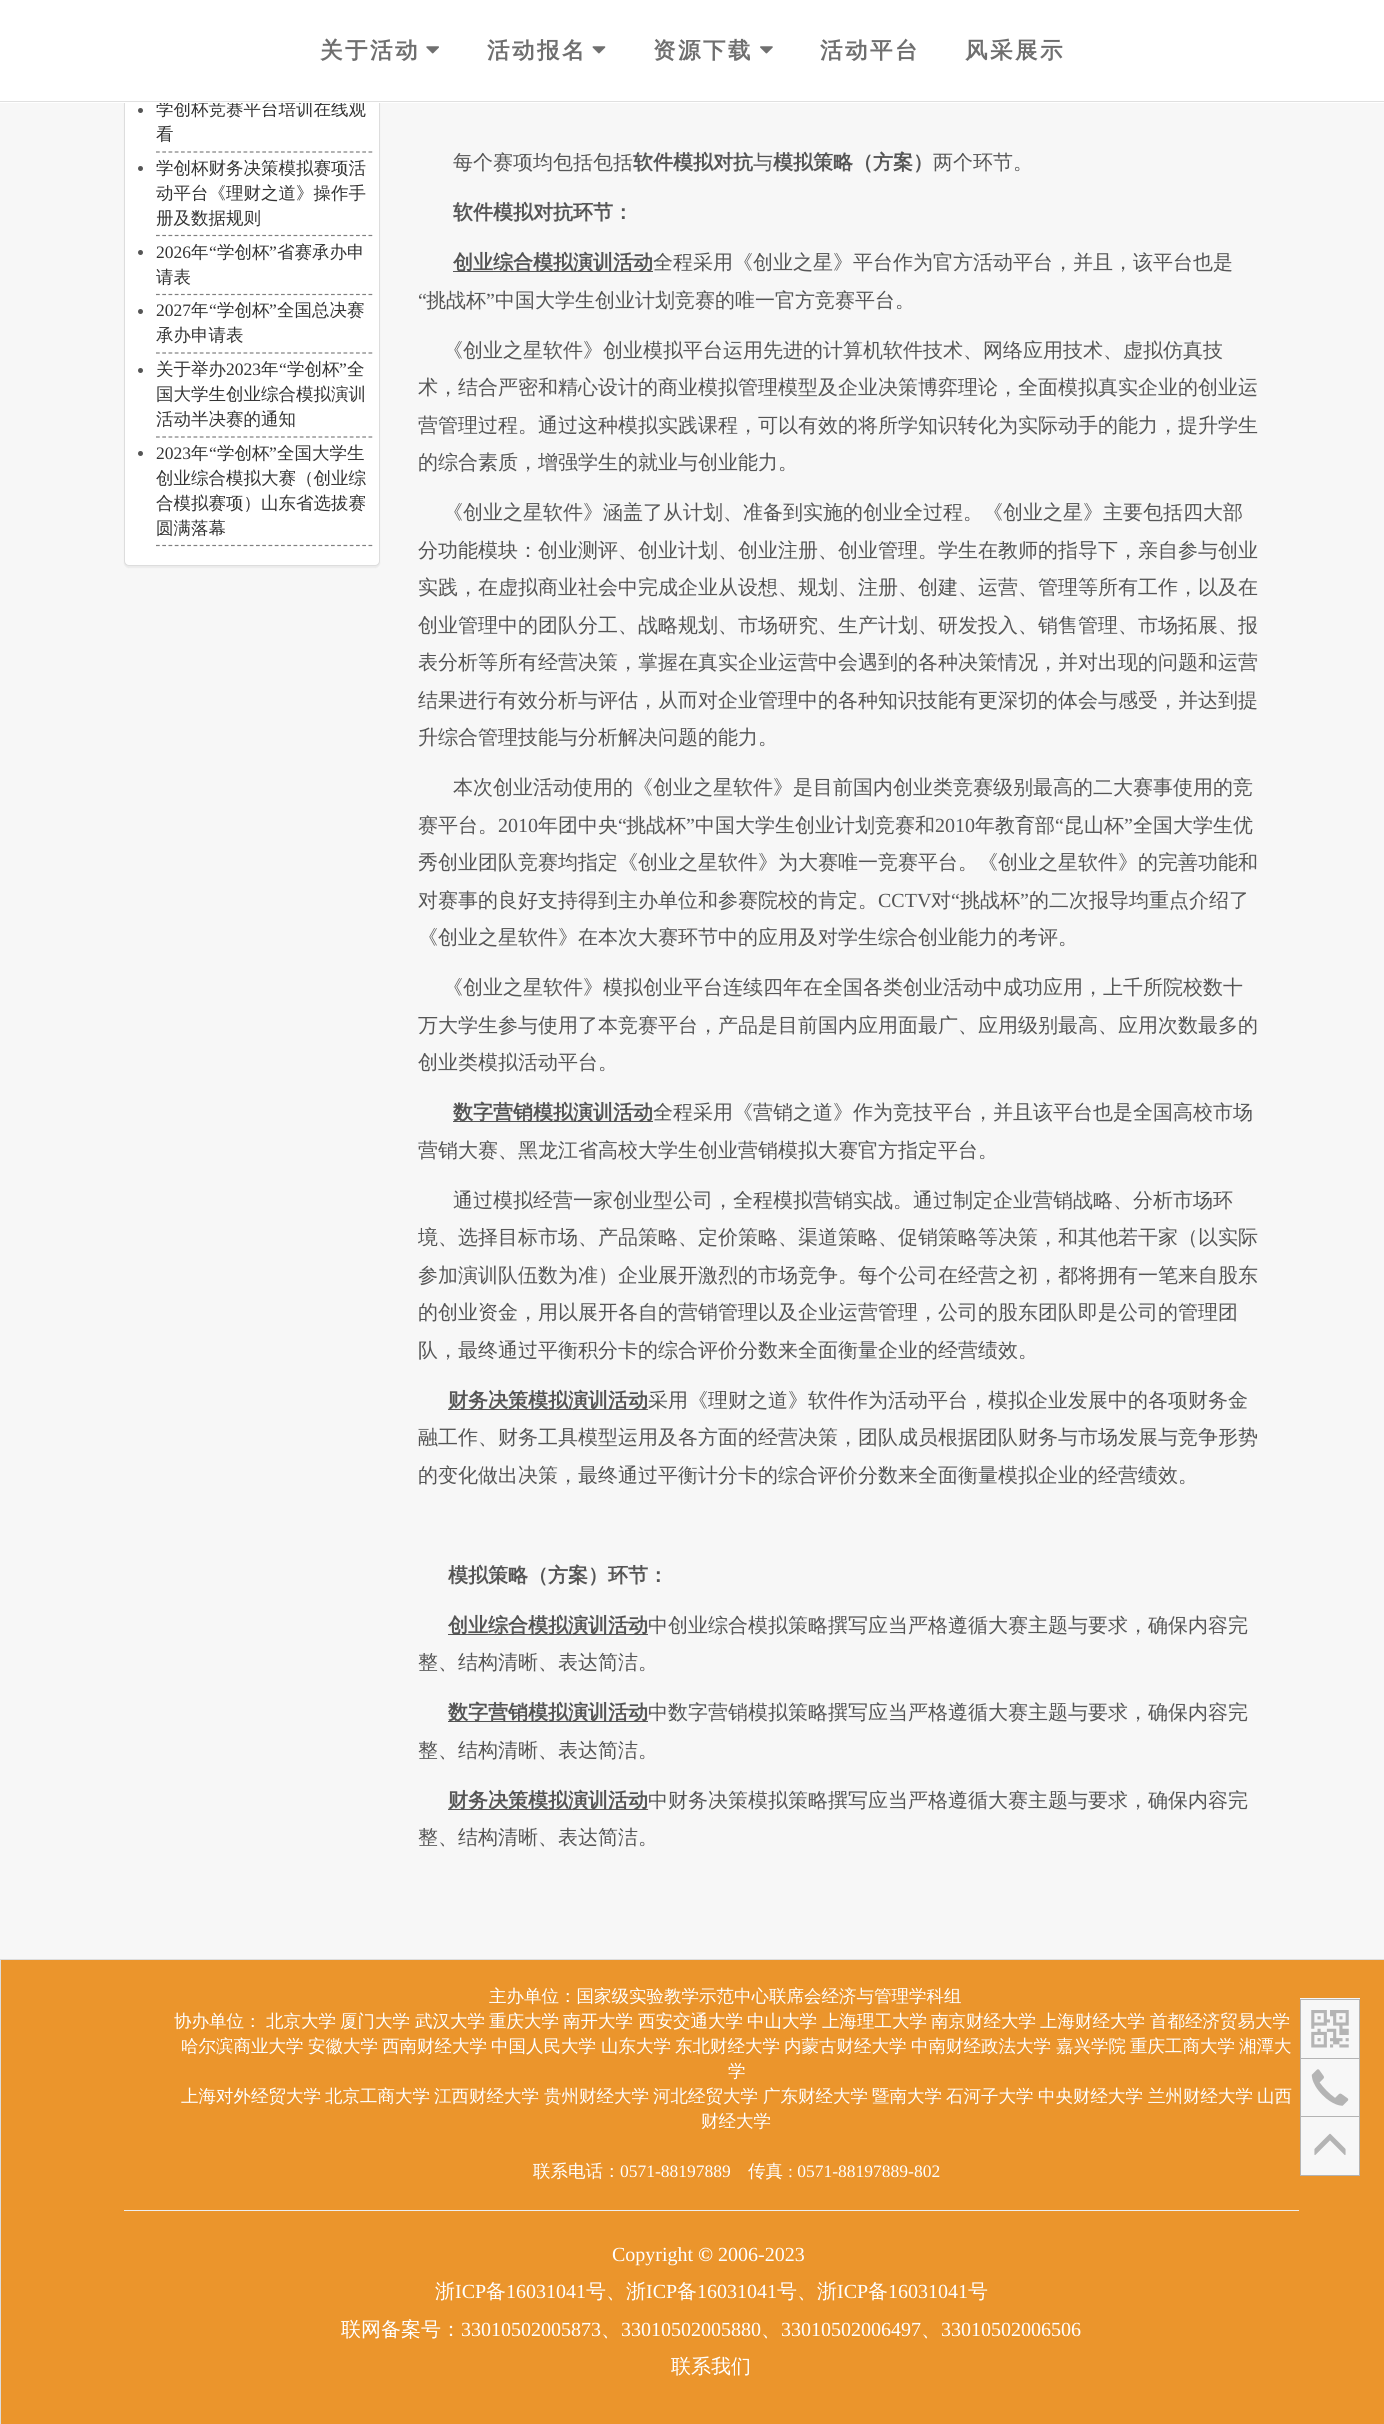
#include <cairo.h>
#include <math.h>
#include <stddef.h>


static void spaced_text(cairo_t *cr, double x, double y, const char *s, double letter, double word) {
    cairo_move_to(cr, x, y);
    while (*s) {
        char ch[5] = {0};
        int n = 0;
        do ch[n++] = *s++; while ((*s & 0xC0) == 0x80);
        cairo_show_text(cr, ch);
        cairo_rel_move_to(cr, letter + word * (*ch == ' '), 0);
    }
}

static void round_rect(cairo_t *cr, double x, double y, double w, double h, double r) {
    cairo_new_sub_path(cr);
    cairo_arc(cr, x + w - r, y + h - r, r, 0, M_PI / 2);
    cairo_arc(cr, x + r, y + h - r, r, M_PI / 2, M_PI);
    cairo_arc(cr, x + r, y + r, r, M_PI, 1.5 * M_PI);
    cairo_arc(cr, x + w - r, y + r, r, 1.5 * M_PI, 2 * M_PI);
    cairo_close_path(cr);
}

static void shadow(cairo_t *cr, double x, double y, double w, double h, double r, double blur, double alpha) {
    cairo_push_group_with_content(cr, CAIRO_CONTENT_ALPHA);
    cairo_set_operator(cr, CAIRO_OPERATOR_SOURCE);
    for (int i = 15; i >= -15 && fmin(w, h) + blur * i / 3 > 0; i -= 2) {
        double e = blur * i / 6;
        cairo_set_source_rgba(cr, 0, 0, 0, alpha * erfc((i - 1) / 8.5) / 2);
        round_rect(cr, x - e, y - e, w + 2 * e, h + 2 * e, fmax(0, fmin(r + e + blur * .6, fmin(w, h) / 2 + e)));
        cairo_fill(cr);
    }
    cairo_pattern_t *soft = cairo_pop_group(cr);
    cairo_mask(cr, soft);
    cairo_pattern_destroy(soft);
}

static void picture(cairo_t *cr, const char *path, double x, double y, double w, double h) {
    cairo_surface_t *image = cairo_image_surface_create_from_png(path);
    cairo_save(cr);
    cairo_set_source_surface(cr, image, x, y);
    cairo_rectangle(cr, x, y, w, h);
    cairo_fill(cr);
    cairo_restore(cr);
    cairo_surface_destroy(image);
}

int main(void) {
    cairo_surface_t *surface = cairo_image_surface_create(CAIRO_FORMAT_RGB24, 1384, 2424);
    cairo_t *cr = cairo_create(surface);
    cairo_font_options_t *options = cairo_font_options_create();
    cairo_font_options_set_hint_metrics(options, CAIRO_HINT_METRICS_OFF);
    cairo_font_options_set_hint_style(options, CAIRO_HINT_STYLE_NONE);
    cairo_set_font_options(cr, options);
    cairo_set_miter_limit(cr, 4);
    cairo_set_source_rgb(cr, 0.965, 0.965, 0.965);
    cairo_paint(cr);
    cairo_set_source_rgb(cr, 0, 0, 0);
    shadow(cr, 124, -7, 256, 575, 5, 0.5, 0.05);
    cairo_set_source_rgb(cr, 1, 1, 1);
    round_rect(cr, 124.5, -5.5, 255, 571, 4.5);
    cairo_fill_preserve(cr);
    cairo_set_source_rgb(cr, 0.867, 0.867, 0.867);
    cairo_set_line_width(cr, 1);
    cairo_stroke(cr);
    cairo_select_font_face(cr, "WenQuanYi Zen Hei Medium", CAIRO_FONT_SLANT_NORMAL, CAIRO_FONT_WEIGHT_NORMAL);
    cairo_set_font_size(cr, 17.5);
    cairo_set_source_rgb(cr, 0.2, 0.2, 0.2);
    cairo_move_to(cr, 156, 115);
    cairo_show_text(cr, "学创杯竞赛平台培训在线观");
    cairo_set_source_rgb(cr, 1, 1, 1);
    cairo_rectangle(cr, 0, 0, 1384, 103);
    cairo_fill(cr);
    cairo_set_source_rgb(cr, 0.878, 0.878, 0.878);
    cairo_rectangle(cr, 0, 101, 1384, 1);
    cairo_fill(cr);
    cairo_select_font_face(cr, "WenQuanYi Zen Hei", CAIRO_FONT_SLANT_NORMAL, CAIRO_FONT_WEIGHT_BOLD);
    cairo_set_font_size(cr, 22.5);
    cairo_set_source_rgb(cr, 0.435, 0.435, 0.435);
    spaced_text(cr, 320, 58, "关于活动", 2.5, 0);
    picture(cr, "img1.png", 426, 46, 13, 8);
    spaced_text(cr, 487, 58, "活动报名", 2.5, 0);
    picture(cr, "img2.png", 592, 46, 14, 8);
    spaced_text(cr, 653, 58, "资源下载", 2.5, 0);
    picture(cr, "img3.png", 760, 46, 13, 8);
    spaced_text(cr, 820, 58, "活动平台", 2.5, 0);
    spaced_text(cr, 965, 58, "风采展示", 2.5, 0);
    cairo_new_path(cr);
    cairo_move_to(cr, 156, 152);
    cairo_line_to(cr, 372.5, 152);
    cairo_set_source_rgb(cr, 0.502, 0.502, 0.502);
    cairo_set_line_width(cr, 1.2);
    cairo_set_dash(cr, (double[]){3.75, 2.5}, 2, 0);
    cairo_stroke(cr);
    cairo_set_source_rgb(cr, 0.333, 0.333, 0.333);
    cairo_arc(cr, 140.5, 110.5, 2.5, 0, 2 * M_PI);
    cairo_fill(cr);
    cairo_select_font_face(cr, "WenQuanYi Zen Hei Medium", CAIRO_FONT_SLANT_NORMAL, CAIRO_FONT_WEIGHT_NORMAL);
    cairo_set_font_size(cr, 17.5);
    cairo_set_source_rgb(cr, 0.2, 0.2, 0.2);
    cairo_move_to(cr, 156, 140);
    cairo_show_text(cr, "看");
    cairo_new_path(cr);
    cairo_move_to(cr, 156, 235.5);
    cairo_line_to(cr, 372.5, 235.5);
    cairo_set_source_rgb(cr, 0.502, 0.502, 0.502);
    cairo_stroke(cr);
    cairo_set_source_rgb(cr, 0.333, 0.333, 0.333);
    cairo_arc(cr, 140.5, 168.5, 2.5, 0, 2 * M_PI);
    cairo_fill(cr);
    cairo_set_source_rgb(cr, 0.2, 0.2, 0.2);
    cairo_move_to(cr, 156, 174);
    cairo_show_text(cr, "学创杯财务决策模拟赛项活");
    cairo_move_to(cr, 156, 199);
    cairo_show_text(cr, "动平台《理财之道》操作手");
    cairo_move_to(cr, 156, 224);
    cairo_show_text(cr, "册及数据规则");
    cairo_new_path(cr);
    cairo_move_to(cr, 156, 294.5);
    cairo_line_to(cr, 372.5, 294.5);
    cairo_set_source_rgb(cr, 0.502, 0.502, 0.502);
    cairo_stroke(cr);
    cairo_select_font_face(cr, "Liberation Serif", CAIRO_FONT_SLANT_NORMAL, CAIRO_FONT_WEIGHT_NORMAL);
    cairo_set_source_rgb(cr, 0.2, 0.2, 0.2);
    cairo_move_to(cr, 156, 258);
    cairo_show_text(cr, "2026");
    cairo_select_font_face(cr, "WenQuanYi Zen Hei Medium", CAIRO_FONT_SLANT_NORMAL, CAIRO_FONT_WEIGHT_NORMAL);
    cairo_move_to(cr, 191, 258);
    cairo_show_text(cr, "年");
    cairo_select_font_face(cr, "Liberation Serif", CAIRO_FONT_SLANT_NORMAL, CAIRO_FONT_WEIGHT_NORMAL);
    cairo_move_to(cr, 209, 258);
    cairo_show_text(cr, "“");
    cairo_select_font_face(cr, "WenQuanYi Zen Hei Medium", CAIRO_FONT_SLANT_NORMAL, CAIRO_FONT_WEIGHT_NORMAL);
    cairo_move_to(cr, 217, 258);
    cairo_show_text(cr, "学创杯");
    cairo_select_font_face(cr, "Liberation Serif", CAIRO_FONT_SLANT_NORMAL, CAIRO_FONT_WEIGHT_NORMAL);
    cairo_move_to(cr, 269, 258);
    cairo_show_text(cr, "”");
    cairo_select_font_face(cr, "WenQuanYi Zen Hei Medium", CAIRO_FONT_SLANT_NORMAL, CAIRO_FONT_WEIGHT_NORMAL);
    cairo_move_to(cr, 277, 258);
    cairo_show_text(cr, "省赛承办申");
    cairo_set_source_rgb(cr, 0.333, 0.333, 0.333);
    cairo_new_path(cr);
    cairo_arc(cr, 140.5, 252.5, 2.5, 0, 2 * M_PI);
    cairo_fill(cr);
    cairo_set_source_rgb(cr, 0.2, 0.2, 0.2);
    cairo_move_to(cr, 156, 283);
    cairo_show_text(cr, "请表");
    cairo_new_path(cr);
    cairo_move_to(cr, 156, 353);
    cairo_line_to(cr, 372.5, 353);
    cairo_set_source_rgb(cr, 0.502, 0.502, 0.502);
    cairo_stroke(cr);
    cairo_select_font_face(cr, "Liberation Serif", CAIRO_FONT_SLANT_NORMAL, CAIRO_FONT_WEIGHT_NORMAL);
    cairo_set_source_rgb(cr, 0.2, 0.2, 0.2);
    cairo_move_to(cr, 156, 316);
    cairo_show_text(cr, "2027");
    cairo_select_font_face(cr, "WenQuanYi Zen Hei Medium", CAIRO_FONT_SLANT_NORMAL, CAIRO_FONT_WEIGHT_NORMAL);
    cairo_move_to(cr, 191, 316);
    cairo_show_text(cr, "年");
    cairo_select_font_face(cr, "Liberation Serif", CAIRO_FONT_SLANT_NORMAL, CAIRO_FONT_WEIGHT_NORMAL);
    cairo_move_to(cr, 209, 316);
    cairo_show_text(cr, "“");
    cairo_select_font_face(cr, "WenQuanYi Zen Hei Medium", CAIRO_FONT_SLANT_NORMAL, CAIRO_FONT_WEIGHT_NORMAL);
    cairo_move_to(cr, 217, 316);
    cairo_show_text(cr, "学创杯");
    cairo_select_font_face(cr, "Liberation Serif", CAIRO_FONT_SLANT_NORMAL, CAIRO_FONT_WEIGHT_NORMAL);
    cairo_move_to(cr, 269, 316);
    cairo_show_text(cr, "”");
    cairo_select_font_face(cr, "WenQuanYi Zen Hei Medium", CAIRO_FONT_SLANT_NORMAL, CAIRO_FONT_WEIGHT_NORMAL);
    cairo_move_to(cr, 277, 316);
    cairo_show_text(cr, "全国总决赛");
    cairo_set_source_rgb(cr, 0.333, 0.333, 0.333);
    cairo_new_path(cr);
    cairo_arc(cr, 140.5, 311.5, 2.5, 0, 2 * M_PI);
    cairo_fill(cr);
    cairo_set_source_rgb(cr, 0.2, 0.2, 0.2);
    cairo_move_to(cr, 156, 341);
    cairo_show_text(cr, "承办申请表");
    cairo_new_path(cr);
    cairo_move_to(cr, 156, 437);
    cairo_line_to(cr, 372.5, 437);
    cairo_set_source_rgb(cr, 0.502, 0.502, 0.502);
    cairo_stroke(cr);
    cairo_set_source_rgb(cr, 0.2, 0.2, 0.2);
    cairo_move_to(cr, 156, 375);
    cairo_show_text(cr, "关于举办");
    cairo_select_font_face(cr, "Liberation Serif", CAIRO_FONT_SLANT_NORMAL, CAIRO_FONT_WEIGHT_NORMAL);
    cairo_move_to(cr, 226, 375);
    cairo_show_text(cr, "2023");
    cairo_select_font_face(cr, "WenQuanYi Zen Hei Medium", CAIRO_FONT_SLANT_NORMAL, CAIRO_FONT_WEIGHT_NORMAL);
    cairo_move_to(cr, 261, 375);
    cairo_show_text(cr, "年");
    cairo_select_font_face(cr, "Liberation Serif", CAIRO_FONT_SLANT_NORMAL, CAIRO_FONT_WEIGHT_NORMAL);
    cairo_move_to(cr, 279, 375);
    cairo_show_text(cr, "“");
    cairo_select_font_face(cr, "WenQuanYi Zen Hei Medium", CAIRO_FONT_SLANT_NORMAL, CAIRO_FONT_WEIGHT_NORMAL);
    cairo_move_to(cr, 287, 375);
    cairo_show_text(cr, "学创杯");
    cairo_select_font_face(cr, "Liberation Serif", CAIRO_FONT_SLANT_NORMAL, CAIRO_FONT_WEIGHT_NORMAL);
    cairo_move_to(cr, 339, 375);
    cairo_show_text(cr, "”");
    cairo_select_font_face(cr, "WenQuanYi Zen Hei Medium", CAIRO_FONT_SLANT_NORMAL, CAIRO_FONT_WEIGHT_NORMAL);
    cairo_move_to(cr, 347, 375);
    cairo_show_text(cr, "全");
    cairo_set_source_rgb(cr, 0.333, 0.333, 0.333);
    cairo_new_path(cr);
    cairo_arc(cr, 140.5, 370.5, 2.5, 0, 2 * M_PI);
    cairo_fill(cr);
    cairo_set_source_rgb(cr, 0.2, 0.2, 0.2);
    cairo_move_to(cr, 156, 400);
    cairo_show_text(cr, "国大学生创业综合模拟演训");
    cairo_move_to(cr, 156, 425);
    cairo_show_text(cr, "活动半决赛的通知");
    cairo_new_path(cr);
    cairo_move_to(cr, 156, 545.5);
    cairo_line_to(cr, 372.5, 545.5);
    cairo_set_source_rgb(cr, 0.502, 0.502, 0.502);
    cairo_stroke(cr);
    cairo_select_font_face(cr, "Liberation Serif", CAIRO_FONT_SLANT_NORMAL, CAIRO_FONT_WEIGHT_NORMAL);
    cairo_set_source_rgb(cr, 0.2, 0.2, 0.2);
    cairo_move_to(cr, 156, 459);
    cairo_show_text(cr, "2023");
    cairo_select_font_face(cr, "WenQuanYi Zen Hei Medium", CAIRO_FONT_SLANT_NORMAL, CAIRO_FONT_WEIGHT_NORMAL);
    cairo_move_to(cr, 191, 459);
    cairo_show_text(cr, "年");
    cairo_select_font_face(cr, "Liberation Serif", CAIRO_FONT_SLANT_NORMAL, CAIRO_FONT_WEIGHT_NORMAL);
    cairo_move_to(cr, 209, 459);
    cairo_show_text(cr, "“");
    cairo_select_font_face(cr, "WenQuanYi Zen Hei Medium", CAIRO_FONT_SLANT_NORMAL, CAIRO_FONT_WEIGHT_NORMAL);
    cairo_move_to(cr, 217, 459);
    cairo_show_text(cr, "学创杯");
    cairo_select_font_face(cr, "Liberation Serif", CAIRO_FONT_SLANT_NORMAL, CAIRO_FONT_WEIGHT_NORMAL);
    cairo_move_to(cr, 269, 459);
    cairo_show_text(cr, "”");
    cairo_select_font_face(cr, "WenQuanYi Zen Hei Medium", CAIRO_FONT_SLANT_NORMAL, CAIRO_FONT_WEIGHT_NORMAL);
    cairo_move_to(cr, 277, 459);
    cairo_show_text(cr, "全国大学生");
    cairo_set_source_rgb(cr, 0.333, 0.333, 0.333);
    cairo_new_path(cr);
    cairo_arc(cr, 140.5, 453.5, 2.5, 0, 2 * M_PI);
    cairo_fill(cr);
    cairo_set_source_rgb(cr, 0.2, 0.2, 0.2);
    cairo_move_to(cr, 156, 484);
    cairo_show_text(cr, "创业综合模拟大赛（创业综");
    cairo_move_to(cr, 156, 509);
    cairo_show_text(cr, "合模拟赛项）山东省选拔赛");
    cairo_move_to(cr, 156, 534);
    cairo_show_text(cr, "圆满落幕");
    cairo_set_font_size(cr, 20);
    cairo_set_source_rgb(cr, 0.333, 0.333, 0.333);
    cairo_move_to(cr, 453, 169);
    cairo_show_text(cr, "每个赛项均包括包括");
    cairo_select_font_face(cr, "WenQuanYi Zen Hei", CAIRO_FONT_SLANT_NORMAL, CAIRO_FONT_WEIGHT_BOLD);
    cairo_move_to(cr, 633, 169);
    cairo_show_text(cr, "软件模拟对抗");
    cairo_select_font_face(cr, "WenQuanYi Zen Hei Medium", CAIRO_FONT_SLANT_NORMAL, CAIRO_FONT_WEIGHT_NORMAL);
    cairo_move_to(cr, 753, 169);
    cairo_show_text(cr, "与");
    cairo_select_font_face(cr, "WenQuanYi Zen Hei", CAIRO_FONT_SLANT_NORMAL, CAIRO_FONT_WEIGHT_BOLD);
    cairo_move_to(cr, 773, 169);
    cairo_show_text(cr, "模拟策略（方案）");
    cairo_select_font_face(cr, "WenQuanYi Zen Hei Medium", CAIRO_FONT_SLANT_NORMAL, CAIRO_FONT_WEIGHT_NORMAL);
    cairo_move_to(cr, 933, 169);
    cairo_show_text(cr, "两个环节。");
    cairo_select_font_face(cr, "WenQuanYi Zen Hei", CAIRO_FONT_SLANT_NORMAL, CAIRO_FONT_WEIGHT_BOLD);
    cairo_move_to(cr, 453, 219);
    cairo_show_text(cr, "软件模拟对抗环节：");
    cairo_rectangle(cr, 453, 271, 200, 1);
    cairo_fill(cr);
    cairo_move_to(cr, 453, 269);
    cairo_show_text(cr, "创业综合模拟演训活动");
    cairo_select_font_face(cr, "WenQuanYi Zen Hei Medium", CAIRO_FONT_SLANT_NORMAL, CAIRO_FONT_WEIGHT_NORMAL);
    cairo_move_to(cr, 653, 269);
    cairo_show_text(cr, "全程采用《创业之星》平台作为官方活动平台，并且，该平台也是");
    cairo_select_font_face(cr, "Liberation Serif", CAIRO_FONT_SLANT_NORMAL, CAIRO_FONT_WEIGHT_NORMAL);
    cairo_move_to(cr, 418, 307);
    cairo_show_text(cr, "“");
    cairo_select_font_face(cr, "WenQuanYi Zen Hei Medium", CAIRO_FONT_SLANT_NORMAL, CAIRO_FONT_WEIGHT_NORMAL);
    cairo_move_to(cr, 426, 307);
    cairo_show_text(cr, "挑战杯");
    cairo_select_font_face(cr, "Liberation Serif", CAIRO_FONT_SLANT_NORMAL, CAIRO_FONT_WEIGHT_NORMAL);
    cairo_move_to(cr, 486, 307);
    cairo_show_text(cr, "”");
    cairo_select_font_face(cr, "WenQuanYi Zen Hei Medium", CAIRO_FONT_SLANT_NORMAL, CAIRO_FONT_WEIGHT_NORMAL);
    cairo_move_to(cr, 495, 307);
    cairo_show_text(cr, "中国大学生创业计划竞赛的唯一官方竞赛平台。");
    cairo_move_to(cr, 443, 357);
    cairo_show_text(cr, "《创业之星软件》创业模拟平台运用先进的计算机软件技术、网络应用技术、虚拟仿真技");
    cairo_move_to(cr, 418, 394);
    cairo_show_text(cr, "术，结合严密和精心设计的商业模拟管理模型及企业决策博弈理论，全面模拟真实企业的创业运");
    cairo_move_to(cr, 418, 432);
    cairo_show_text(cr, "营管理过程。通过这种模拟实践课程，可以有效的将所学知识转化为实际动手的能力，提升学生");
    cairo_move_to(cr, 418, 469);
    cairo_show_text(cr, "的综合素质，增强学生的就业与创业能力。");
    cairo_move_to(cr, 443, 519);
    cairo_show_text(cr, "《创业之星软件》涵盖了从计划、准备到实施的创业全过程。《创业之星》主要包括四大部");
    cairo_move_to(cr, 418, 557);
    cairo_show_text(cr, "分功能模块：创业测评、创业计划、创业注册、创业管理。学生在教师的指导下，亲自参与创业");
    cairo_move_to(cr, 418, 594);
    cairo_show_text(cr, "实践，在虚拟商业社会中完成企业从设想、规划、注册、创建、运营、管理等所有工作，以及在");
    cairo_move_to(cr, 418, 632);
    cairo_show_text(cr, "创业管理中的团队分工、战略规划、市场研究、生产计划、研发投入、销售管理、市场拓展、报");
    cairo_move_to(cr, 418, 669);
    cairo_show_text(cr, "表分析等所有经营决策，掌握在真实企业运营中会遇到的各种决策情况，并对出现的问题和运营");
    cairo_move_to(cr, 418, 707);
    cairo_show_text(cr, "结果进行有效分析与评估，从而对企业管理中的各种知识技能有更深切的体会与感受，并达到提");
    cairo_move_to(cr, 418, 744);
    cairo_show_text(cr, "升综合管理技能与分析解决问题的能力。");
    cairo_move_to(cr, 453, 794);
    cairo_show_text(cr, "本次创业活动使用的《创业之星软件》是目前国内创业类竞赛级别最高的二大赛事使用的竞");
    cairo_move_to(cr, 418, 832);
    cairo_show_text(cr, "赛平台。");
    cairo_select_font_face(cr, "Liberation Serif", CAIRO_FONT_SLANT_NORMAL, CAIRO_FONT_WEIGHT_NORMAL);
    cairo_move_to(cr, 498, 832);
    cairo_show_text(cr, "2010");
    cairo_select_font_face(cr, "WenQuanYi Zen Hei Medium", CAIRO_FONT_SLANT_NORMAL, CAIRO_FONT_WEIGHT_NORMAL);
    cairo_move_to(cr, 538, 832);
    cairo_show_text(cr, "年团中央");
    cairo_select_font_face(cr, "Liberation Serif", CAIRO_FONT_SLANT_NORMAL, CAIRO_FONT_WEIGHT_NORMAL);
    cairo_move_to(cr, 618, 832);
    cairo_show_text(cr, "“");
    cairo_select_font_face(cr, "WenQuanYi Zen Hei Medium", CAIRO_FONT_SLANT_NORMAL, CAIRO_FONT_WEIGHT_NORMAL);
    cairo_move_to(cr, 626, 832);
    cairo_show_text(cr, "挑战杯");
    cairo_select_font_face(cr, "Liberation Serif", CAIRO_FONT_SLANT_NORMAL, CAIRO_FONT_WEIGHT_NORMAL);
    cairo_move_to(cr, 686, 832);
    cairo_show_text(cr, "”");
    cairo_select_font_face(cr, "WenQuanYi Zen Hei Medium", CAIRO_FONT_SLANT_NORMAL, CAIRO_FONT_WEIGHT_NORMAL);
    cairo_move_to(cr, 695, 832);
    cairo_show_text(cr, "中国大学生创业计划竞赛和");
    cairo_select_font_face(cr, "Liberation Serif", CAIRO_FONT_SLANT_NORMAL, CAIRO_FONT_WEIGHT_NORMAL);
    cairo_move_to(cr, 935, 832);
    cairo_show_text(cr, "2010");
    cairo_select_font_face(cr, "WenQuanYi Zen Hei Medium", CAIRO_FONT_SLANT_NORMAL, CAIRO_FONT_WEIGHT_NORMAL);
    cairo_move_to(cr, 975, 832);
    cairo_show_text(cr, "年教育部");
    cairo_select_font_face(cr, "Liberation Serif", CAIRO_FONT_SLANT_NORMAL, CAIRO_FONT_WEIGHT_NORMAL);
    cairo_move_to(cr, 1055, 832);
    cairo_show_text(cr, "“");
    cairo_select_font_face(cr, "WenQuanYi Zen Hei Medium", CAIRO_FONT_SLANT_NORMAL, CAIRO_FONT_WEIGHT_NORMAL);
    cairo_move_to(cr, 1064, 832);
    cairo_show_text(cr, "昆山杯");
    cairo_select_font_face(cr, "Liberation Serif", CAIRO_FONT_SLANT_NORMAL, CAIRO_FONT_WEIGHT_NORMAL);
    cairo_move_to(cr, 1124, 832);
    cairo_show_text(cr, "”");
    cairo_select_font_face(cr, "WenQuanYi Zen Hei Medium", CAIRO_FONT_SLANT_NORMAL, CAIRO_FONT_WEIGHT_NORMAL);
    cairo_move_to(cr, 1133, 832);
    cairo_show_text(cr, "全国大学生优");
    cairo_move_to(cr, 418, 869);
    cairo_show_text(cr, "秀创业团队竞赛均指定《创业之星软件》为大赛唯一竞赛平台。《创业之星软件》的完善功能和");
    cairo_move_to(cr, 418, 907);
    cairo_show_text(cr, "对赛事的良好支持得到主办单位和参赛院校的肯定。");
    cairo_select_font_face(cr, "Liberation Serif", CAIRO_FONT_SLANT_NORMAL, CAIRO_FONT_WEIGHT_NORMAL);
    cairo_move_to(cr, 878, 907);
    cairo_show_text(cr, "CCTV");
    cairo_select_font_face(cr, "WenQuanYi Zen Hei Medium", CAIRO_FONT_SLANT_NORMAL, CAIRO_FONT_WEIGHT_NORMAL);
    cairo_move_to(cr, 931, 907);
    cairo_show_text(cr, "对");
    cairo_select_font_face(cr, "Liberation Serif", CAIRO_FONT_SLANT_NORMAL, CAIRO_FONT_WEIGHT_NORMAL);
    cairo_move_to(cr, 951, 907);
    cairo_show_text(cr, "“");
    cairo_select_font_face(cr, "WenQuanYi Zen Hei Medium", CAIRO_FONT_SLANT_NORMAL, CAIRO_FONT_WEIGHT_NORMAL);
    cairo_move_to(cr, 960, 907);
    cairo_show_text(cr, "挑战杯");
    cairo_select_font_face(cr, "Liberation Serif", CAIRO_FONT_SLANT_NORMAL, CAIRO_FONT_WEIGHT_NORMAL);
    cairo_move_to(cr, 1020, 907);
    cairo_show_text(cr, "”");
    cairo_select_font_face(cr, "WenQuanYi Zen Hei Medium", CAIRO_FONT_SLANT_NORMAL, CAIRO_FONT_WEIGHT_NORMAL);
    cairo_move_to(cr, 1029, 907);
    cairo_show_text(cr, "的二次报导均重点介绍了");
    cairo_move_to(cr, 418, 944);
    cairo_show_text(cr, "《创业之星软件》在本次大赛环节中的应用及对学生综合创业能力的考评。");
    cairo_move_to(cr, 443, 994);
    cairo_show_text(cr, "《创业之星软件》模拟创业平台连续四年在全国各类创业活动中成功应用，上千所院校数十");
    cairo_move_to(cr, 418, 1032);
    cairo_show_text(cr, "万大学生参与使用了本竞赛平台，产品是目前国内应用面最广、应用级别最高、应用次数最多的");
    cairo_move_to(cr, 418, 1069);
    cairo_show_text(cr, "创业类模拟活动平台。");
    cairo_rectangle(cr, 453, 1121, 200, 1);
    cairo_fill(cr);
    cairo_select_font_face(cr, "WenQuanYi Zen Hei", CAIRO_FONT_SLANT_NORMAL, CAIRO_FONT_WEIGHT_BOLD);
    cairo_move_to(cr, 453, 1119);
    cairo_show_text(cr, "数字营销模拟演训活动");
    cairo_select_font_face(cr, "WenQuanYi Zen Hei Medium", CAIRO_FONT_SLANT_NORMAL, CAIRO_FONT_WEIGHT_NORMAL);
    cairo_move_to(cr, 653, 1119);
    cairo_show_text(cr, "全程采用《营销之道》作为竞技平台，并且该平台也是全国高校市场");
    cairo_move_to(cr, 418, 1157);
    cairo_show_text(cr, "营销大赛、黑龙江省高校大学生创业营销模拟大赛官方指定平台。");
    cairo_move_to(cr, 453, 1207);
    cairo_show_text(cr, "通过模拟经营一家创业型公司，全程模拟营销实战。通过制定企业营销战略、分析市场环");
    cairo_move_to(cr, 418, 1244);
    cairo_show_text(cr, "境、选择目标市场、产品策略、定价策略、渠道策略、促销策略等决策，和其他若干家（以实际");
    cairo_move_to(cr, 418, 1282);
    cairo_show_text(cr, "参加演训队伍数为准）企业展开激烈的市场竞争。每个公司在经营之初，都将拥有一笔来自股东");
    cairo_move_to(cr, 418, 1319);
    cairo_show_text(cr, "的创业资金，用以展开各自的营销管理以及企业运营管理，公司的股东团队即是公司的管理团");
    cairo_move_to(cr, 418, 1357);
    cairo_show_text(cr, "队，最终通过平衡积分卡的综合评价分数来全面衡量企业的经营绩效。");
    cairo_rectangle(cr, 448, 1409, 200, 1);
    cairo_fill(cr);
    cairo_select_font_face(cr, "WenQuanYi Zen Hei", CAIRO_FONT_SLANT_NORMAL, CAIRO_FONT_WEIGHT_BOLD);
    cairo_move_to(cr, 448, 1407);
    cairo_show_text(cr, "财务决策模拟演训活动");
    cairo_select_font_face(cr, "WenQuanYi Zen Hei Medium", CAIRO_FONT_SLANT_NORMAL, CAIRO_FONT_WEIGHT_NORMAL);
    cairo_move_to(cr, 648, 1407);
    cairo_show_text(cr, "采用《理财之道》软件作为活动平台，模拟企业发展中的各项财务金");
    cairo_move_to(cr, 418, 1444);
    cairo_show_text(cr, "融工作、财务工具模型运用及各方面的经营决策，团队成员根据团队财务与市场发展与竞争形势");
    cairo_move_to(cr, 418, 1482);
    cairo_show_text(cr, "的变化做出决策，最终通过平衡计分卡的综合评价分数来全面衡量模拟企业的经营绩效。");
    cairo_select_font_face(cr, "WenQuanYi Zen Hei", CAIRO_FONT_SLANT_NORMAL, CAIRO_FONT_WEIGHT_BOLD);
    cairo_move_to(cr, 448, 1582);
    cairo_show_text(cr, "模拟策略（方案）环节：");
    cairo_rectangle(cr, 448, 1634, 200, 1);
    cairo_fill(cr);
    cairo_move_to(cr, 448, 1632);
    cairo_show_text(cr, "创业综合模拟演训活动");
    cairo_select_font_face(cr, "WenQuanYi Zen Hei Medium", CAIRO_FONT_SLANT_NORMAL, CAIRO_FONT_WEIGHT_NORMAL);
    cairo_move_to(cr, 648, 1632);
    cairo_show_text(cr, "中创业综合模拟策略撰写应当严格遵循大赛主题与要求，确保内容完");
    cairo_move_to(cr, 418, 1669);
    cairo_show_text(cr, "整、结构清晰、表达简洁。");
    cairo_rectangle(cr, 448, 1721, 200, 1);
    cairo_fill(cr);
    cairo_select_font_face(cr, "WenQuanYi Zen Hei", CAIRO_FONT_SLANT_NORMAL, CAIRO_FONT_WEIGHT_BOLD);
    cairo_move_to(cr, 448, 1719);
    cairo_show_text(cr, "数字营销模拟演训活动");
    cairo_select_font_face(cr, "WenQuanYi Zen Hei Medium", CAIRO_FONT_SLANT_NORMAL, CAIRO_FONT_WEIGHT_NORMAL);
    cairo_move_to(cr, 648, 1719);
    cairo_show_text(cr, "中数字营销模拟策略撰写应当严格遵循大赛主题与要求，确保内容完");
    cairo_move_to(cr, 418, 1757);
    cairo_show_text(cr, "整、结构清晰、表达简洁。");
    cairo_rectangle(cr, 448, 1809, 200, 1);
    cairo_fill(cr);
    cairo_select_font_face(cr, "WenQuanYi Zen Hei", CAIRO_FONT_SLANT_NORMAL, CAIRO_FONT_WEIGHT_BOLD);
    cairo_move_to(cr, 448, 1807);
    cairo_show_text(cr, "财务决策模拟演训活动");
    cairo_select_font_face(cr, "WenQuanYi Zen Hei Medium", CAIRO_FONT_SLANT_NORMAL, CAIRO_FONT_WEIGHT_NORMAL);
    cairo_move_to(cr, 648, 1807);
    cairo_show_text(cr, "中财务决策模拟策略撰写应当严格遵循大赛主题与要求，确保内容完");
    cairo_move_to(cr, 418, 1844);
    cairo_show_text(cr, "整、结构清晰、表达简洁。");
    cairo_set_source_rgb(cr, 0.918, 0.584, 0.173);
    cairo_rectangle(cr, 0.5, 1959.5, 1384, 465);
    cairo_fill_preserve(cr);
    cairo_set_source_rgb(cr, 0.867, 0.867, 0.867);
    cairo_set_line_width(cr, 1);
    cairo_set_dash(cr, NULL, 0, 0);
    cairo_stroke(cr);
    cairo_set_font_size(cr, 17.5);
    cairo_set_source_rgb(cr, 1, 1, 1);
    cairo_move_to(cr, 489, 2002);
    cairo_show_text(cr, "主办单位：国家级实验教学示范中心联席会经济与管理学科组");
    cairo_move_to(cr, 174, 2027);
    cairo_show_text(cr, "协办单位：");
    cairo_move_to(cr, 266, 2027);
    cairo_show_text(cr, "北京大学");
    cairo_move_to(cr, 340, 2027);
    cairo_show_text(cr, "厦门大学");
    cairo_move_to(cr, 415, 2027);
    cairo_show_text(cr, "武汉大学");
    cairo_move_to(cr, 489, 2027);
    cairo_show_text(cr, "重庆大学");
    cairo_move_to(cr, 563, 2027);
    cairo_show_text(cr, "南开大学");
    cairo_move_to(cr, 638, 2027);
    cairo_show_text(cr, "西安交通大学");
    cairo_move_to(cr, 747, 2027);
    cairo_show_text(cr, "中山大学");
    cairo_move_to(cr, 822, 2027);
    cairo_show_text(cr, "上海理工大学");
    cairo_move_to(cr, 931, 2027);
    cairo_show_text(cr, "南京财经大学");
    cairo_move_to(cr, 1040, 2027);
    cairo_show_text(cr, "上海财经大学");
    cairo_move_to(cr, 1150, 2027);
    cairo_show_text(cr, "首都经济贸易大学");
    cairo_move_to(cr, 181, 2052);
    cairo_show_text(cr, "哈尔滨商业大学");
    cairo_move_to(cr, 308, 2052);
    cairo_show_text(cr, "安徽大学");
    cairo_move_to(cr, 382, 2052);
    cairo_show_text(cr, "西南财经大学");
    cairo_move_to(cr, 491, 2052);
    cairo_show_text(cr, "中国人民大学");
    cairo_move_to(cr, 601, 2052);
    cairo_show_text(cr, "山东大学");
    cairo_move_to(cr, 675, 2052);
    cairo_show_text(cr, "东北财经大学");
    cairo_move_to(cr, 784, 2052);
    cairo_show_text(cr, "内蒙古财经大学");
    cairo_move_to(cr, 911, 2052);
    cairo_show_text(cr, "中南财经政法大学");
    cairo_move_to(cr, 1056, 2052);
    cairo_show_text(cr, "嘉兴学院");
    cairo_move_to(cr, 1130, 2052);
    cairo_show_text(cr, "重庆工商大学");
    cairo_move_to(cr, 1239, 2052);
    cairo_show_text(cr, "湘潭大");
    cairo_move_to(cr, 728, 2077);
    cairo_show_text(cr, "学");
    cairo_move_to(cr, 181, 2102);
    cairo_show_text(cr, "上海对外经贸大学");
    cairo_move_to(cr, 325, 2102);
    cairo_show_text(cr, "北京工商大学");
    cairo_move_to(cr, 434, 2102);
    cairo_show_text(cr, "江西财经大学");
    cairo_move_to(cr, 544, 2102);
    cairo_show_text(cr, "贵州财经大学");
    cairo_move_to(cr, 653, 2102);
    cairo_show_text(cr, "河北经贸大学");
    cairo_move_to(cr, 763, 2102);
    cairo_show_text(cr, "广东财经大学");
    cairo_move_to(cr, 872, 2102);
    cairo_show_text(cr, "暨南大学");
    cairo_move_to(cr, 946, 2102);
    cairo_show_text(cr, "石河子大学");
    cairo_move_to(cr, 1038, 2102);
    cairo_show_text(cr, "中央财经大学");
    cairo_move_to(cr, 1148, 2102);
    cairo_show_text(cr, "兰州财经大学");
    cairo_move_to(cr, 1257, 2102);
    cairo_show_text(cr, "山西");
    cairo_move_to(cr, 701, 2127);
    cairo_show_text(cr, "财经大学");
    cairo_move_to(cr, 533, 2177);
    cairo_show_text(cr, "联系电话：");
    cairo_select_font_face(cr, "Liberation Serif", CAIRO_FONT_SLANT_NORMAL, CAIRO_FONT_WEIGHT_NORMAL);
    cairo_move_to(cr, 620, 2177);
    cairo_show_text(cr, "0571-88197889");
    cairo_select_font_face(cr, "WenQuanYi Zen Hei Medium", CAIRO_FONT_SLANT_NORMAL, CAIRO_FONT_WEIGHT_NORMAL);
    cairo_move_to(cr, 748, 2177);
    cairo_show_text(cr, "传真");
    cairo_select_font_face(cr, "Liberation Serif", CAIRO_FONT_SLANT_NORMAL, CAIRO_FONT_WEIGHT_NORMAL);
    cairo_move_to(cr, 788, 2177);
    cairo_show_text(cr, ": 0571-88197889-802");
    cairo_set_source_rgb(cr, 0.933, 0.933, 0.933);
    cairo_rectangle(cr, 124, 2210, 1175, 1);
    cairo_fill(cr);
    cairo_set_font_size(cr, 20);
    cairo_set_source_rgb(cr, 1, 1, 1);
    cairo_move_to(cr, 612, 2261);
    cairo_show_text(cr, "Copyright");
    cairo_select_font_face(cr, "Liberation Serif", CAIRO_FONT_SLANT_NORMAL, CAIRO_FONT_WEIGHT_BOLD);
    cairo_move_to(cr, 698, 2261);
    cairo_show_text(cr, "©");
    cairo_select_font_face(cr, "Liberation Serif", CAIRO_FONT_SLANT_NORMAL, CAIRO_FONT_WEIGHT_NORMAL);
    cairo_move_to(cr, 718, 2261);
    cairo_show_text(cr, "2006-2023");
    cairo_select_font_face(cr, "WenQuanYi Zen Hei Medium", CAIRO_FONT_SLANT_NORMAL, CAIRO_FONT_WEIGHT_NORMAL);
    cairo_move_to(cr, 435, 2298);
    cairo_show_text(cr, "浙");
    cairo_select_font_face(cr, "Liberation Serif", CAIRO_FONT_SLANT_NORMAL, CAIRO_FONT_WEIGHT_NORMAL);
    cairo_move_to(cr, 455, 2298);
    cairo_show_text(cr, "ICP");
    cairo_select_font_face(cr, "WenQuanYi Zen Hei Medium", CAIRO_FONT_SLANT_NORMAL, CAIRO_FONT_WEIGHT_NORMAL);
    cairo_move_to(cr, 486, 2298);
    cairo_show_text(cr, "备");
    cairo_select_font_face(cr, "Liberation Serif", CAIRO_FONT_SLANT_NORMAL, CAIRO_FONT_WEIGHT_NORMAL);
    cairo_move_to(cr, 506, 2298);
    cairo_show_text(cr, "16031041");
    cairo_select_font_face(cr, "WenQuanYi Zen Hei Medium", CAIRO_FONT_SLANT_NORMAL, CAIRO_FONT_WEIGHT_NORMAL);
    cairo_move_to(cr, 586, 2298);
    cairo_show_text(cr, "号、浙");
    cairo_select_font_face(cr, "Liberation Serif", CAIRO_FONT_SLANT_NORMAL, CAIRO_FONT_WEIGHT_NORMAL);
    cairo_move_to(cr, 646, 2298);
    cairo_show_text(cr, "ICP");
    cairo_select_font_face(cr, "WenQuanYi Zen Hei Medium", CAIRO_FONT_SLANT_NORMAL, CAIRO_FONT_WEIGHT_NORMAL);
    cairo_move_to(cr, 677, 2298);
    cairo_show_text(cr, "备");
    cairo_select_font_face(cr, "Liberation Serif", CAIRO_FONT_SLANT_NORMAL, CAIRO_FONT_WEIGHT_NORMAL);
    cairo_move_to(cr, 697, 2298);
    cairo_show_text(cr, "16031041");
    cairo_select_font_face(cr, "WenQuanYi Zen Hei Medium", CAIRO_FONT_SLANT_NORMAL, CAIRO_FONT_WEIGHT_NORMAL);
    cairo_move_to(cr, 777, 2298);
    cairo_show_text(cr, "号、浙");
    cairo_select_font_face(cr, "Liberation Serif", CAIRO_FONT_SLANT_NORMAL, CAIRO_FONT_WEIGHT_NORMAL);
    cairo_move_to(cr, 837, 2298);
    cairo_show_text(cr, "ICP");
    cairo_select_font_face(cr, "WenQuanYi Zen Hei Medium", CAIRO_FONT_SLANT_NORMAL, CAIRO_FONT_WEIGHT_NORMAL);
    cairo_move_to(cr, 868, 2298);
    cairo_show_text(cr, "备");
    cairo_select_font_face(cr, "Liberation Serif", CAIRO_FONT_SLANT_NORMAL, CAIRO_FONT_WEIGHT_NORMAL);
    cairo_move_to(cr, 888, 2298);
    cairo_show_text(cr, "16031041");
    cairo_select_font_face(cr, "WenQuanYi Zen Hei Medium", CAIRO_FONT_SLANT_NORMAL, CAIRO_FONT_WEIGHT_NORMAL);
    cairo_move_to(cr, 968, 2298);
    cairo_show_text(cr, "号");
    cairo_move_to(cr, 341, 2336);
    cairo_show_text(cr, "联网备案号：");
    cairo_select_font_face(cr, "Liberation Serif", CAIRO_FONT_SLANT_NORMAL, CAIRO_FONT_WEIGHT_NORMAL);
    cairo_move_to(cr, 461, 2336);
    cairo_show_text(cr, "33010502005873");
    cairo_select_font_face(cr, "WenQuanYi Zen Hei Medium", CAIRO_FONT_SLANT_NORMAL, CAIRO_FONT_WEIGHT_NORMAL);
    cairo_move_to(cr, 601, 2336);
    cairo_show_text(cr, "、");
    cairo_select_font_face(cr, "Liberation Serif", CAIRO_FONT_SLANT_NORMAL, CAIRO_FONT_WEIGHT_NORMAL);
    cairo_move_to(cr, 621, 2336);
    cairo_show_text(cr, "33010502005880");
    cairo_select_font_face(cr, "WenQuanYi Zen Hei Medium", CAIRO_FONT_SLANT_NORMAL, CAIRO_FONT_WEIGHT_NORMAL);
    cairo_move_to(cr, 761, 2336);
    cairo_show_text(cr, "、");
    cairo_select_font_face(cr, "Liberation Serif", CAIRO_FONT_SLANT_NORMAL, CAIRO_FONT_WEIGHT_NORMAL);
    cairo_move_to(cr, 781, 2336);
    cairo_show_text(cr, "33010502006497");
    cairo_select_font_face(cr, "WenQuanYi Zen Hei Medium", CAIRO_FONT_SLANT_NORMAL, CAIRO_FONT_WEIGHT_NORMAL);
    cairo_move_to(cr, 921, 2336);
    cairo_show_text(cr, "、");
    cairo_select_font_face(cr, "Liberation Serif", CAIRO_FONT_SLANT_NORMAL, CAIRO_FONT_WEIGHT_NORMAL);
    cairo_move_to(cr, 941, 2336);
    cairo_show_text(cr, "33010502006506");
    cairo_select_font_face(cr, "WenQuanYi Zen Hei Medium", CAIRO_FONT_SLANT_NORMAL, CAIRO_FONT_WEIGHT_NORMAL);
    cairo_move_to(cr, 671, 2373);
    cairo_show_text(cr, "联系我们");
    cairo_set_source_rgb(cr, 0.965, 0.965, 0.965);
    cairo_rectangle(cr, 1300, 1998, 60, 58);
    cairo_fill(cr);
    cairo_set_source_rgb(cr, 0.706, 0.706, 0.706);
    cairo_rectangle(cr, 1300, 1999, 60, 1);
    cairo_fill(cr);
    cairo_rectangle(cr, 1359, 1999, 1, 59);
    cairo_fill(cr);
    cairo_rectangle(cr, 1300, 1999, 1, 59);
    cairo_fill(cr);
    picture(cr, "img4.png", 1311, 2010, 38, 38);
    cairo_set_source_rgb(cr, 0.965, 0.965, 0.965);
    cairo_rectangle(cr, 1301, 2056, 58, 119);
    cairo_fill(cr);
    cairo_set_source_rgb(cr, 0.706, 0.706, 0.706);
    cairo_rectangle(cr, 1300, 2058, 60, 1);
    cairo_fill(cr);
    cairo_rectangle(cr, 1359, 2058, 1, 58);
    cairo_fill(cr);
    cairo_rectangle(cr, 1300, 2058, 1, 58);
    cairo_fill(cr);
    picture(cr, "img5.png", 1311, 2069, 38, 37);
    cairo_rectangle(cr, 1300.5, 2116.5, 59, 59);
    cairo_stroke(cr);
    picture(cr, "img6.png", 1314, 2133, 32, 22);
    cairo_surface_write_to_png(surface, "page.png");
    cairo_font_options_destroy(options);
    cairo_destroy(cr);
    cairo_surface_destroy(surface);
    return 0;
}
